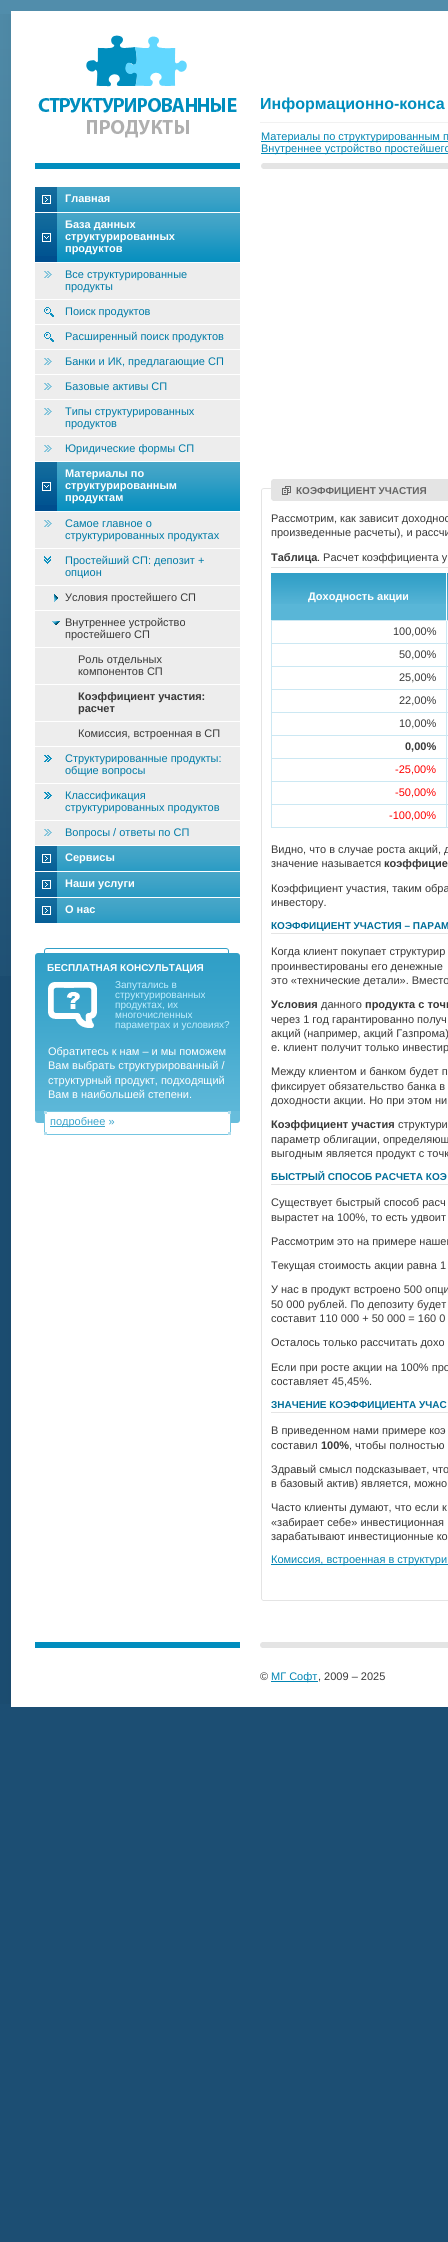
#include <cairo.h>
#include <math.h>
#include <stddef.h>


static void picture(cairo_t *cr, const char *path, double x, double y, double w, double h) {
    cairo_surface_t *image = cairo_image_surface_create_from_png(path);
    cairo_save(cr);
    cairo_set_source_surface(cr, image, x, y);
    cairo_rectangle(cr, x, y, w, h);
    cairo_fill(cr);
    cairo_restore(cr);
    cairo_surface_destroy(image);
}

int main(void) {
    cairo_surface_t *surface = cairo_image_surface_create(CAIRO_FORMAT_RGB24, 448, 2242);
    cairo_t *cr = cairo_create(surface);
    cairo_font_options_t *options = cairo_font_options_create();
    cairo_font_options_set_hint_metrics(options, CAIRO_HINT_METRICS_OFF);
    cairo_font_options_set_hint_style(options, CAIRO_HINT_STYLE_NONE);
    cairo_set_font_options(cr, options);
    cairo_set_miter_limit(cr, 4);
    cairo_set_source_rgb(cr, 0.11, 0.306, 0.451);
    cairo_paint(cr);
    picture(cr, "img1.png", 0, 0, 448, 976);
    cairo_set_source_rgb(cr, 1, 1, 1);
    cairo_rectangle(cr, 11, 11, 437, 3);
    cairo_fill(cr);
    picture(cr, "img2.png", 0, 14, 14, 1690);
    cairo_rectangle(cr, 14, 14, 434, 1690);
    cairo_fill(cr);
    picture(cr, "img3.png", 38, 35, 199, 103);
    cairo_set_source_rgb(cr, 0.004, 0.553, 0.745);
    cairo_rectangle(cr, 35, 163, 205, 6);
    cairo_fill(cr);
    cairo_select_font_face(cr, "Liberation Sans", CAIRO_FONT_SLANT_NORMAL, CAIRO_FONT_WEIGHT_BOLD);
    cairo_set_font_size(cr, 16);
    cairo_set_source_rgb(cr, 0, 0.557, 0.745);
    cairo_move_to(cr, 260, 109);
    cairo_show_text(cr, "Информационно-конса");
    cairo_set_source_rgb(cr, 0.945, 0.945, 0.945);
    cairo_rectangle(cr, 260, 122, 188, 1);
    cairo_fill(cr);
    cairo_set_source_rgb(cr, 0.012, 0.525, 0.706);
    cairo_rectangle(cr, 261, 141, 187, 1);
    cairo_fill(cr);
    cairo_select_font_face(cr, "Liberation Sans", CAIRO_FONT_SLANT_NORMAL, CAIRO_FONT_WEIGHT_NORMAL);
    cairo_set_font_size(cr, 11);
    cairo_move_to(cr, 261, 140);
    cairo_show_text(cr, "Материалы по структурированным п");
    cairo_rectangle(cr, 261, 153, 187, 1);
    cairo_fill(cr);
    cairo_move_to(cr, 261, 152);
    cairo_show_text(cr, "Внутреннее устройство простейшего");
    cairo_set_source_rgb(cr, 0.894, 0.894, 0.894);
    cairo_rectangle(cr, 261, 163, 187, 6);
    cairo_fill(cr);
    picture(cr, "img4.png", 261, 163, 2, 6);
    picture(cr, "img5.png", 35, 187, 22, 25);
    picture(cr, "img6.png", 42, 195, 9, 9);
    picture(cr, "img7.png", 57, 187, 183, 25);
    cairo_select_font_face(cr, "Liberation Sans", CAIRO_FONT_SLANT_NORMAL, CAIRO_FONT_WEIGHT_BOLD);
    cairo_set_source_rgb(cr, 1, 1, 1);
    cairo_move_to(cr, 65, 202);
    cairo_show_text(cr, "Главная");
    cairo_set_source_rgb(cr, 0, 0.306, 0.557);
    cairo_rectangle(cr, 35, 256, 22, 6);
    cairo_fill(cr);
    picture(cr, "img8.png", 35, 213, 22, 43);
    picture(cr, "img9.png", 42, 233, 9, 9);
    picture(cr, "img10.png", 57, 213, 183, 49);
    cairo_set_source_rgb(cr, 1, 1, 1);
    cairo_move_to(cr, 65, 228);
    cairo_show_text(cr, "База данных");
    cairo_move_to(cr, 65, 240);
    cairo_show_text(cr, "структурированных");
    cairo_move_to(cr, 65, 252);
    cairo_show_text(cr, "продуктов");
    cairo_set_source_rgb(cr, 0.929, 0.929, 0.929);
    cairo_rectangle(cr, 35, 263, 205, 36);
    cairo_fill(cr);
    picture(cr, "img11.png", 44, 271, 8, 7);
    cairo_select_font_face(cr, "Liberation Sans", CAIRO_FONT_SLANT_NORMAL, CAIRO_FONT_WEIGHT_NORMAL);
    cairo_set_source_rgb(cr, 0, 0.482, 0.655);
    cairo_move_to(cr, 65, 278);
    cairo_show_text(cr, "Все структурированные");
    cairo_move_to(cr, 65, 290);
    cairo_show_text(cr, "продукты");
    cairo_set_source_rgb(cr, 0.929, 0.929, 0.929);
    cairo_rectangle(cr, 35, 300, 205, 24);
    cairo_fill(cr);
    picture(cr, "img12.png", 44, 307, 10, 10);
    cairo_set_source_rgb(cr, 0, 0.482, 0.655);
    cairo_move_to(cr, 65, 315);
    cairo_show_text(cr, "Поиск продуктов");
    cairo_set_source_rgb(cr, 0.929, 0.929, 0.929);
    cairo_rectangle(cr, 35, 325, 205, 24);
    cairo_fill(cr);
    picture(cr, "img12.png", 44, 332, 10, 10);
    cairo_set_source_rgb(cr, 0, 0.482, 0.655);
    cairo_move_to(cr, 65, 340);
    cairo_show_text(cr, "Расширенный поиск продуктов");
    cairo_set_source_rgb(cr, 0.929, 0.929, 0.929);
    cairo_rectangle(cr, 35, 350, 205, 24);
    cairo_fill(cr);
    picture(cr, "img11.png", 44, 358, 8, 7);
    cairo_set_source_rgb(cr, 0, 0.482, 0.655);
    cairo_move_to(cr, 65, 365);
    cairo_show_text(cr, "Банки и ИК, предлагающие СП");
    cairo_set_source_rgb(cr, 0.929, 0.929, 0.929);
    cairo_rectangle(cr, 35, 375, 205, 24);
    cairo_fill(cr);
    picture(cr, "img11.png", 44, 383, 8, 7);
    cairo_set_source_rgb(cr, 0, 0.482, 0.655);
    cairo_move_to(cr, 65, 390);
    cairo_show_text(cr, "Базовые активы СП");
    cairo_set_source_rgb(cr, 0.929, 0.929, 0.929);
    cairo_rectangle(cr, 35, 400, 205, 36);
    cairo_fill(cr);
    picture(cr, "img11.png", 44, 408, 8, 7);
    cairo_set_source_rgb(cr, 0, 0.482, 0.655);
    cairo_move_to(cr, 65, 415);
    cairo_show_text(cr, "Типы структурированных");
    cairo_move_to(cr, 65, 427);
    cairo_show_text(cr, "продуктов");
    cairo_set_source_rgb(cr, 0.929, 0.929, 0.929);
    cairo_rectangle(cr, 35, 437, 205, 24);
    cairo_fill(cr);
    picture(cr, "img11.png", 44, 445, 8, 7);
    cairo_set_source_rgb(cr, 0, 0.482, 0.655);
    cairo_move_to(cr, 65, 452);
    cairo_show_text(cr, "Юридические формы СП");
    cairo_set_source_rgb(cr, 0, 0.306, 0.557);
    cairo_rectangle(cr, 35, 505, 22, 6);
    cairo_fill(cr);
    picture(cr, "img8.png", 35, 462, 22, 43);
    picture(cr, "img9.png", 42, 482, 9, 9);
    picture(cr, "img10.png", 57, 462, 183, 49);
    cairo_select_font_face(cr, "Liberation Sans", CAIRO_FONT_SLANT_NORMAL, CAIRO_FONT_WEIGHT_BOLD);
    cairo_set_source_rgb(cr, 1, 1, 1);
    cairo_move_to(cr, 65, 477);
    cairo_show_text(cr, "Материалы по");
    cairo_move_to(cr, 65, 489);
    cairo_show_text(cr, "структурированным");
    cairo_move_to(cr, 65, 501);
    cairo_show_text(cr, "продуктам");
    cairo_set_source_rgb(cr, 0.929, 0.929, 0.929);
    cairo_rectangle(cr, 35, 512, 205, 36);
    cairo_fill(cr);
    picture(cr, "img11.png", 44, 520, 8, 7);
    cairo_select_font_face(cr, "Liberation Sans", CAIRO_FONT_SLANT_NORMAL, CAIRO_FONT_WEIGHT_NORMAL);
    cairo_set_source_rgb(cr, 0, 0.482, 0.655);
    cairo_move_to(cr, 65, 527);
    cairo_show_text(cr, "Самое главное о");
    cairo_move_to(cr, 65, 539);
    cairo_show_text(cr, "структурированных продуктах");
    cairo_set_source_rgb(cr, 0.929, 0.929, 0.929);
    cairo_rectangle(cr, 35, 549, 205, 197);
    cairo_fill(cr);
    picture(cr, "img13.png", 44, 556, 7, 8);
    cairo_set_source_rgb(cr, 0, 0.482, 0.655);
    cairo_move_to(cr, 65, 564);
    cairo_show_text(cr, "Простейший СП: депозит +");
    cairo_move_to(cr, 65, 576);
    cairo_show_text(cr, "опцион");
    cairo_set_source_rgb(cr, 1, 1, 1);
    cairo_rectangle(cr, 35, 585, 205, 1);
    cairo_fill(cr);
    picture(cr, "img14.png", 54, 594, 4, 8);
    cairo_set_source_rgb(cr, 0.224, 0.224, 0.224);
    cairo_move_to(cr, 65, 601);
    cairo_show_text(cr, "Условия простейшего СП");
    cairo_set_source_rgb(cr, 1, 1, 1);
    cairo_rectangle(cr, 35, 610, 205, 1);
    cairo_fill(cr);
    picture(cr, "img15.png", 52, 621, 8, 4);
    cairo_set_source_rgb(cr, 0.224, 0.224, 0.224);
    cairo_move_to(cr, 65, 626);
    cairo_show_text(cr, "Внутреннее устройство");
    cairo_move_to(cr, 65, 638);
    cairo_show_text(cr, "простейшего СП");
    cairo_set_source_rgb(cr, 1, 1, 1);
    cairo_rectangle(cr, 35, 647, 205, 1);
    cairo_fill(cr);
    cairo_set_source_rgb(cr, 0.224, 0.224, 0.224);
    cairo_move_to(cr, 78, 663);
    cairo_show_text(cr, "Роль отдельных");
    cairo_move_to(cr, 78, 675);
    cairo_show_text(cr, "компонентов СП");
    cairo_set_source_rgb(cr, 1, 1, 1);
    cairo_rectangle(cr, 35, 684, 205, 1);
    cairo_fill(cr);
    cairo_select_font_face(cr, "Liberation Sans", CAIRO_FONT_SLANT_NORMAL, CAIRO_FONT_WEIGHT_BOLD);
    cairo_set_source_rgb(cr, 0.224, 0.224, 0.224);
    cairo_move_to(cr, 78, 700);
    cairo_show_text(cr, "Коэффициент участия:");
    cairo_move_to(cr, 78, 712);
    cairo_show_text(cr, "расчет");
    cairo_set_source_rgb(cr, 1, 1, 1);
    cairo_rectangle(cr, 35, 721, 205, 1);
    cairo_fill(cr);
    cairo_select_font_face(cr, "Liberation Sans", CAIRO_FONT_SLANT_NORMAL, CAIRO_FONT_WEIGHT_NORMAL);
    cairo_set_source_rgb(cr, 0.224, 0.224, 0.224);
    cairo_move_to(cr, 78, 737);
    cairo_show_text(cr, "Комиссия, встроенная в СП");
    cairo_set_source_rgb(cr, 0.929, 0.929, 0.929);
    cairo_rectangle(cr, 35, 747, 205, 36);
    cairo_fill(cr);
    picture(cr, "img16.png", 44, 755, 8, 7);
    cairo_set_source_rgb(cr, 0, 0.482, 0.655);
    cairo_move_to(cr, 65, 762);
    cairo_show_text(cr, "Структурированные продукты:");
    cairo_move_to(cr, 65, 774);
    cairo_show_text(cr, "общие вопросы");
    cairo_set_source_rgb(cr, 0.929, 0.929, 0.929);
    cairo_rectangle(cr, 35, 784, 205, 36);
    cairo_fill(cr);
    picture(cr, "img16.png", 44, 792, 8, 7);
    cairo_set_source_rgb(cr, 0, 0.482, 0.655);
    cairo_move_to(cr, 65, 799);
    cairo_show_text(cr, "Классификация");
    cairo_move_to(cr, 65, 811);
    cairo_show_text(cr, "структурированных продуктов");
    cairo_set_source_rgb(cr, 0.929, 0.929, 0.929);
    cairo_rectangle(cr, 35, 821, 205, 24);
    cairo_fill(cr);
    picture(cr, "img11.png", 44, 829, 8, 7);
    cairo_set_source_rgb(cr, 0, 0.482, 0.655);
    cairo_move_to(cr, 65, 836);
    cairo_show_text(cr, "Вопросы / ответы по СП");
    picture(cr, "img5.png", 35, 846, 22, 25);
    picture(cr, "img6.png", 42, 854, 9, 9);
    picture(cr, "img7.png", 57, 846, 183, 25);
    cairo_select_font_face(cr, "Liberation Sans", CAIRO_FONT_SLANT_NORMAL, CAIRO_FONT_WEIGHT_BOLD);
    cairo_set_source_rgb(cr, 1, 1, 1);
    cairo_move_to(cr, 65, 861);
    cairo_show_text(cr, "Сервисы");
    picture(cr, "img5.png", 35, 872, 22, 25);
    picture(cr, "img6.png", 42, 880, 9, 9);
    picture(cr, "img7.png", 57, 872, 183, 25);
    cairo_move_to(cr, 65, 887);
    cairo_show_text(cr, "Наши услуги");
    picture(cr, "img5.png", 35, 898, 22, 25);
    picture(cr, "img6.png", 42, 906, 9, 9);
    picture(cr, "img7.png", 57, 898, 183, 25);
    cairo_move_to(cr, 65, 913);
    cairo_show_text(cr, "О нас");
    picture(cr, "img17.png", 47, 948, 179, 8);
    picture(cr, "img18.png", 35, 948, 12, 8);
    picture(cr, "img19.png", 226, 948, 14, 8);
    picture(cr, "img20.png", 35, 956, 205, 155);
    cairo_set_font_size(cr, 10);
    cairo_move_to(cr, 47, 971);
    cairo_show_text(cr, "БЕСПЛАТНАЯ КОНСУЛЬТАЦИЯ");
    picture(cr, "img21.png", 48, 982, 49, 46);
    cairo_select_font_face(cr, "Liberation Sans", CAIRO_FONT_SLANT_NORMAL, CAIRO_FONT_WEIGHT_NORMAL);
    cairo_set_source_rgb(cr, 0.749, 0.933, 1);
    cairo_move_to(cr, 115, 988);
    cairo_show_text(cr, "Запутались в");
    cairo_move_to(cr, 115, 998);
    cairo_show_text(cr, "структурированных");
    cairo_move_to(cr, 115, 1008);
    cairo_show_text(cr, "продуктах, их");
    cairo_move_to(cr, 115, 1018);
    cairo_show_text(cr, "многочисленных");
    cairo_move_to(cr, 115, 1028);
    cairo_show_text(cr, "параметрах и условиях?");
    cairo_set_font_size(cr, 11);
    cairo_set_source_rgb(cr, 1, 1, 1);
    cairo_move_to(cr, 48, 1055);
    cairo_show_text(cr, "Обратитесь к нам – и мы поможем");
    cairo_move_to(cr, 48, 1069);
    cairo_show_text(cr, "Вам выбрать структурированный /");
    cairo_move_to(cr, 48, 1084);
    cairo_show_text(cr, "структурный продукт, подходящий");
    cairo_move_to(cr, 48, 1098);
    cairo_show_text(cr, "Вам в наибольшей степени.");
    picture(cr, "img22.png", 35, 1111, 9, 24);
    picture(cr, "img23.png", 231, 1111, 9, 24);
    cairo_set_source_rgb(cr, 0.455, 0.773, 0.882);
    cairo_rectangle(cr, 44, 1111, 187, 1);
    cairo_fill(cr);
    cairo_rectangle(cr, 230, 1112, 1, 23);
    cairo_fill(cr);
    cairo_rectangle(cr, 44, 1134, 186, 1);
    cairo_fill(cr);
    cairo_rectangle(cr, 44, 1112, 1, 22);
    cairo_fill(cr);
    cairo_set_source_rgb(cr, 0.694, 0.871, 0.933);
    cairo_rectangle(cr, 44, 1111, 3, 3);
    cairo_fill(cr);
    cairo_rectangle(cr, 228, 1111, 3, 3);
    cairo_fill(cr);
    cairo_rectangle(cr, 228, 1132, 3, 3);
    cairo_fill(cr);
    cairo_rectangle(cr, 44, 1132, 3, 3);
    cairo_fill(cr);
    cairo_set_source_rgb(cr, 0.227, 0.643, 0.796);
    cairo_rectangle(cr, 50, 1126, 55, 1);
    cairo_fill(cr);
    cairo_move_to(cr, 50, 1125);
    cairo_show_text(cr, "подробнее »");
    cairo_set_source_rgb(cr, 0.894, 0.894, 0.894);
    cairo_rectangle(cr, 261, 490, 1, 1111);
    cairo_fill(cr);
    cairo_rectangle(cr, 262, 1600, 186, 1);
    cairo_fill(cr);
    picture(cr, "img24.png", 261, 1599, 2, 2);
    picture(cr, "img25.png", 261, 479, 10, 11);
    cairo_rectangle(cr, 271, 479, 177, 22);
    cairo_fill(cr);
    picture(cr, "img26.png", 271, 479, 2, 2);
    picture(cr, "img27.png", 271, 499, 2, 2);
    picture(cr, "img28.png", 282, 486, 9, 9);
    cairo_select_font_face(cr, "Liberation Sans", CAIRO_FONT_SLANT_NORMAL, CAIRO_FONT_WEIGHT_BOLD);
    cairo_set_font_size(cr, 10);
    cairo_set_source_rgb(cr, 0.396, 0.396, 0.396);
    cairo_move_to(cr, 296, 494);
    cairo_show_text(cr, "КОЭФФИЦИЕНТ УЧАСТИЯ");
    cairo_select_font_face(cr, "Liberation Sans", CAIRO_FONT_SLANT_NORMAL, CAIRO_FONT_WEIGHT_NORMAL);
    cairo_set_font_size(cr, 11);
    cairo_set_source_rgb(cr, 0.224, 0.224, 0.224);
    cairo_move_to(cr, 271, 522);
    cairo_show_text(cr, "Рассмотрим, как зависит доходнос");
    cairo_move_to(cr, 271, 536);
    cairo_show_text(cr, "произведенные расчеты), и рассчи");
    cairo_set_source_rgb(cr, 0.894, 0.894, 0.894);
    cairo_rectangle(cr, 271, 567, 177, 1);
    cairo_fill(cr);
    cairo_select_font_face(cr, "Liberation Sans", CAIRO_FONT_SLANT_NORMAL, CAIRO_FONT_WEIGHT_BOLD);
    cairo_set_source_rgb(cr, 0.224, 0.224, 0.224);
    cairo_move_to(cr, 271, 561);
    cairo_show_text(cr, "Таблица");
    cairo_select_font_face(cr, "Liberation Sans", CAIRO_FONT_SLANT_NORMAL, CAIRO_FONT_WEIGHT_NORMAL);
    cairo_move_to(cr, 317, 561);
    cairo_show_text(cr, ". Расчет коэффициента у");
    cairo_set_source_rgb(cr, 0.349, 0.714, 0.843);
    cairo_rectangle(cr, 271, 604, 175, 16);
    cairo_fill(cr);
    picture(cr, "img29.png", 271, 573, 175, 31);
    cairo_set_source_rgb(cr, 0.8, 0.91, 0.953);
    cairo_rectangle(cr, 271, 620, 1, 207);
    cairo_fill(cr);
    cairo_rectangle(cr, 446, 620, 2, 1);
    cairo_fill(cr);
    cairo_rectangle(cr, 446, 643, 2, 1);
    cairo_fill(cr);
    cairo_rectangle(cr, 446, 666, 2, 1);
    cairo_fill(cr);
    cairo_rectangle(cr, 446, 689, 2, 1);
    cairo_fill(cr);
    cairo_rectangle(cr, 446, 712, 2, 1);
    cairo_fill(cr);
    cairo_rectangle(cr, 446, 735, 2, 1);
    cairo_fill(cr);
    cairo_rectangle(cr, 446, 758, 2, 1);
    cairo_fill(cr);
    cairo_rectangle(cr, 446, 781, 2, 1);
    cairo_fill(cr);
    cairo_rectangle(cr, 446, 804, 2, 1);
    cairo_fill(cr);
    cairo_rectangle(cr, 446, 827, 2, 1);
    cairo_fill(cr);
    cairo_rectangle(cr, 446, 804, 1, 24);
    cairo_fill(cr);
    cairo_rectangle(cr, 271, 804, 176, 1);
    cairo_fill(cr);
    cairo_rectangle(cr, 446, 781, 1, 24);
    cairo_fill(cr);
    cairo_rectangle(cr, 271, 781, 176, 1);
    cairo_fill(cr);
    cairo_rectangle(cr, 446, 758, 1, 24);
    cairo_fill(cr);
    cairo_rectangle(cr, 271, 758, 176, 1);
    cairo_fill(cr);
    cairo_rectangle(cr, 446, 735, 1, 24);
    cairo_fill(cr);
    cairo_rectangle(cr, 271, 735, 176, 1);
    cairo_fill(cr);
    cairo_rectangle(cr, 446, 712, 1, 24);
    cairo_fill(cr);
    cairo_rectangle(cr, 271, 712, 176, 1);
    cairo_fill(cr);
    cairo_rectangle(cr, 446, 689, 1, 24);
    cairo_fill(cr);
    cairo_rectangle(cr, 271, 689, 176, 1);
    cairo_fill(cr);
    cairo_rectangle(cr, 446, 666, 1, 24);
    cairo_fill(cr);
    cairo_rectangle(cr, 271, 666, 176, 1);
    cairo_fill(cr);
    cairo_rectangle(cr, 446, 643, 1, 24);
    cairo_fill(cr);
    cairo_rectangle(cr, 271, 643, 176, 1);
    cairo_fill(cr);
    cairo_rectangle(cr, 446, 620, 1, 24);
    cairo_fill(cr);
    cairo_rectangle(cr, 271, 620, 176, 1);
    cairo_fill(cr);
    cairo_set_source_rgb(cr, 1, 1, 1);
    cairo_rectangle(cr, 446, 620, 1, 1);
    cairo_fill(cr);
    cairo_select_font_face(cr, "Liberation Sans", CAIRO_FONT_SLANT_NORMAL, CAIRO_FONT_WEIGHT_BOLD);
    cairo_move_to(cr, 308, 600);
    cairo_show_text(cr, "Доходность акции");
    cairo_set_source_rgb(cr, 0.349, 0.714, 0.843);
    cairo_rectangle(cr, 447, 604, 1, 16);
    cairo_fill(cr);
    picture(cr, "img30.png", 447, 573, 1, 31);
    cairo_select_font_face(cr, "Liberation Sans", CAIRO_FONT_SLANT_NORMAL, CAIRO_FONT_WEIGHT_NORMAL);
    cairo_set_source_rgb(cr, 0.224, 0.224, 0.224);
    cairo_move_to(cr, 393, 635);
    cairo_show_text(cr, "100,00%");
    cairo_move_to(cr, 399, 658);
    cairo_show_text(cr, "50,00%");
    cairo_move_to(cr, 399, 681);
    cairo_show_text(cr, "25,00%");
    cairo_move_to(cr, 399, 704);
    cairo_show_text(cr, "22,00%");
    cairo_move_to(cr, 399, 727);
    cairo_show_text(cr, "10,00%");
    cairo_select_font_face(cr, "Liberation Sans", CAIRO_FONT_SLANT_NORMAL, CAIRO_FONT_WEIGHT_BOLD);
    cairo_move_to(cr, 405, 750);
    cairo_show_text(cr, "0,00%");
    cairo_select_font_face(cr, "Liberation Sans", CAIRO_FONT_SLANT_NORMAL, CAIRO_FONT_WEIGHT_NORMAL);
    cairo_set_source_rgb(cr, 1, 0, 0);
    cairo_move_to(cr, 395, 773);
    cairo_show_text(cr, "-25,00%");
    cairo_move_to(cr, 395, 796);
    cairo_show_text(cr, "-50,00%");
    cairo_set_source_rgb(cr, 0.8, 0.91, 0.953);
    cairo_rectangle(cr, 271, 827, 176, 1);
    cairo_fill(cr);
    cairo_set_source_rgb(cr, 1, 0, 0);
    cairo_move_to(cr, 389, 819);
    cairo_show_text(cr, "-100,00%");
    cairo_set_source_rgb(cr, 0.224, 0.224, 0.224);
    cairo_move_to(cr, 271, 853);
    cairo_show_text(cr, "Видно, что в случае роста акций, д");
    cairo_move_to(cr, 271, 867);
    cairo_show_text(cr, "значение называется");
    cairo_select_font_face(cr, "Liberation Sans", CAIRO_FONT_SLANT_NORMAL, CAIRO_FONT_WEIGHT_BOLD);
    cairo_move_to(cr, 384, 867);
    cairo_show_text(cr, "коэффицие");
    cairo_select_font_face(cr, "Liberation Sans", CAIRO_FONT_SLANT_NORMAL, CAIRO_FONT_WEIGHT_NORMAL);
    cairo_move_to(cr, 271, 892);
    cairo_show_text(cr, "Коэффициент участия, таким обра");
    cairo_move_to(cr, 271, 906);
    cairo_show_text(cr, "инвестору.");
    cairo_set_source_rgb(cr, 0.894, 0.894, 0.894);
    cairo_rectangle(cr, 271, 933, 177, 1);
    cairo_fill(cr);
    cairo_select_font_face(cr, "Liberation Sans", CAIRO_FONT_SLANT_NORMAL, CAIRO_FONT_WEIGHT_BOLD);
    cairo_set_font_size(cr, 10);
    cairo_set_source_rgb(cr, 0, 0.431, 0.6);
    cairo_move_to(cr, 271, 929);
    cairo_show_text(cr, "КОЭФФИЦИЕНТ УЧАСТИЯ – ПАРАМ");
    cairo_select_font_face(cr, "Liberation Sans", CAIRO_FONT_SLANT_NORMAL, CAIRO_FONT_WEIGHT_NORMAL);
    cairo_set_font_size(cr, 11);
    cairo_set_source_rgb(cr, 0.224, 0.224, 0.224);
    cairo_move_to(cr, 271, 955);
    cairo_show_text(cr, "Когда клиент покупает структурир");
    cairo_move_to(cr, 271, 970);
    cairo_show_text(cr, "проинвестированы его денежные");
    cairo_move_to(cr, 271, 984);
    cairo_show_text(cr, "это «технические детали». Вместо");
    cairo_select_font_face(cr, "Liberation Sans", CAIRO_FONT_SLANT_NORMAL, CAIRO_FONT_WEIGHT_BOLD);
    cairo_move_to(cr, 271, 1008);
    cairo_show_text(cr, "Условия");
    cairo_select_font_face(cr, "Liberation Sans", CAIRO_FONT_SLANT_NORMAL, CAIRO_FONT_WEIGHT_NORMAL);
    cairo_move_to(cr, 321, 1008);
    cairo_show_text(cr, "данного");
    cairo_select_font_face(cr, "Liberation Sans", CAIRO_FONT_SLANT_NORMAL, CAIRO_FONT_WEIGHT_BOLD);
    cairo_move_to(cr, 365, 1008);
    cairo_show_text(cr, "продукта с точк");
    cairo_select_font_face(cr, "Liberation Sans", CAIRO_FONT_SLANT_NORMAL, CAIRO_FONT_WEIGHT_NORMAL);
    cairo_move_to(cr, 271, 1023);
    cairo_show_text(cr, "через 1 год гарантированно получ");
    cairo_move_to(cr, 271, 1037);
    cairo_show_text(cr, "акций (например, акций Газпрома)");
    cairo_move_to(cr, 271, 1051);
    cairo_show_text(cr, "е. клиент получит только инвестир");
    cairo_move_to(cr, 271, 1075);
    cairo_show_text(cr, "Между клиентом и банком будет п");
    cairo_move_to(cr, 271, 1090);
    cairo_show_text(cr, "фиксирует обязательство банка в");
    cairo_move_to(cr, 271, 1104);
    cairo_show_text(cr, "доходности акции. Но при этом ни");
    cairo_select_font_face(cr, "Liberation Sans", CAIRO_FONT_SLANT_NORMAL, CAIRO_FONT_WEIGHT_BOLD);
    cairo_move_to(cr, 271, 1128);
    cairo_show_text(cr, "Коэффициент участия");
    cairo_select_font_face(cr, "Liberation Sans", CAIRO_FONT_SLANT_NORMAL, CAIRO_FONT_WEIGHT_NORMAL);
    cairo_move_to(cr, 398, 1128);
    cairo_show_text(cr, "структури");
    cairo_move_to(cr, 271, 1143);
    cairo_show_text(cr, "параметр облигации, определяющ");
    cairo_move_to(cr, 271, 1157);
    cairo_show_text(cr, "выгодным является продукт с точк");
    cairo_set_source_rgb(cr, 0.894, 0.894, 0.894);
    cairo_rectangle(cr, 271, 1184, 177, 1);
    cairo_fill(cr);
    cairo_select_font_face(cr, "Liberation Sans", CAIRO_FONT_SLANT_NORMAL, CAIRO_FONT_WEIGHT_BOLD);
    cairo_set_font_size(cr, 10);
    cairo_set_source_rgb(cr, 0, 0.431, 0.6);
    cairo_move_to(cr, 271, 1180);
    cairo_show_text(cr, "БЫСТРЫЙ СПОСОБ РАСЧЕТА КОЭ");
    cairo_select_font_face(cr, "Liberation Sans", CAIRO_FONT_SLANT_NORMAL, CAIRO_FONT_WEIGHT_NORMAL);
    cairo_set_font_size(cr, 11);
    cairo_set_source_rgb(cr, 0.224, 0.224, 0.224);
    cairo_move_to(cr, 271, 1206);
    cairo_show_text(cr, "Существует быстрый способ расч");
    cairo_move_to(cr, 271, 1221);
    cairo_show_text(cr, "вырастет на 100%, то есть удвоит");
    cairo_move_to(cr, 271, 1245);
    cairo_show_text(cr, "Рассмотрим это на примере нашег");
    cairo_move_to(cr, 271, 1269);
    cairo_show_text(cr, "Текущая стоимость акции равна 1");
    cairo_move_to(cr, 271, 1293);
    cairo_show_text(cr, "У нас в продукт встроено 500 опци");
    cairo_move_to(cr, 271, 1308);
    cairo_show_text(cr, "50 000 рублей. По депозиту будет");
    cairo_move_to(cr, 271, 1322);
    cairo_show_text(cr, "составит 110 000 + 50 000 = 160 0");
    cairo_move_to(cr, 271, 1346);
    cairo_show_text(cr, "Осталось только рассчитать дохо");
    cairo_move_to(cr, 271, 1371);
    cairo_show_text(cr, "Если при росте акции на 100% про");
    cairo_move_to(cr, 271, 1385);
    cairo_show_text(cr, "составляет 45,45%.");
    cairo_set_source_rgb(cr, 0.894, 0.894, 0.894);
    cairo_rectangle(cr, 271, 1412, 177, 1);
    cairo_fill(cr);
    cairo_select_font_face(cr, "Liberation Sans", CAIRO_FONT_SLANT_NORMAL, CAIRO_FONT_WEIGHT_BOLD);
    cairo_set_font_size(cr, 10);
    cairo_set_source_rgb(cr, 0, 0.431, 0.6);
    cairo_move_to(cr, 271, 1408);
    cairo_show_text(cr, "ЗНАЧЕНИЕ КОЭФФИЦИЕНТА УЧАС");
    cairo_select_font_face(cr, "Liberation Sans", CAIRO_FONT_SLANT_NORMAL, CAIRO_FONT_WEIGHT_NORMAL);
    cairo_set_font_size(cr, 11);
    cairo_set_source_rgb(cr, 0.224, 0.224, 0.224);
    cairo_move_to(cr, 271, 1434);
    cairo_show_text(cr, "В приведенном нами примере коэ");
    cairo_move_to(cr, 271, 1449);
    cairo_show_text(cr, "составил");
    cairo_select_font_face(cr, "Liberation Sans", CAIRO_FONT_SLANT_NORMAL, CAIRO_FONT_WEIGHT_BOLD);
    cairo_move_to(cr, 321, 1449);
    cairo_show_text(cr, "100%");
    cairo_select_font_face(cr, "Liberation Sans", CAIRO_FONT_SLANT_NORMAL, CAIRO_FONT_WEIGHT_NORMAL);
    cairo_move_to(cr, 349, 1449);
    cairo_show_text(cr, ", чтобы полностью");
    cairo_move_to(cr, 271, 1473);
    cairo_show_text(cr, "Здравый смысл подсказывает, что");
    cairo_move_to(cr, 271, 1487);
    cairo_show_text(cr, "в базовый актив) является, можно");
    cairo_move_to(cr, 271, 1511);
    cairo_show_text(cr, "Часто клиенты думают, что если к");
    cairo_move_to(cr, 271, 1526);
    cairo_show_text(cr, "«забирает себе» инвестиционная");
    cairo_move_to(cr, 271, 1540);
    cairo_show_text(cr, "зарабатывают инвестиционные ко");
    cairo_set_source_rgb(cr, 0.012, 0.525, 0.706);
    cairo_rectangle(cr, 271, 1564, 177, 1);
    cairo_fill(cr);
    cairo_move_to(cr, 271, 1563);
    cairo_show_text(cr, "Комиссия, встроенная в структурир");
    cairo_set_source_rgb(cr, 0.004, 0.553, 0.745);
    cairo_rectangle(cr, 35, 1642, 205, 6);
    cairo_fill(cr);
    cairo_set_source_rgb(cr, 0.894, 0.894, 0.894);
    cairo_rectangle(cr, 260, 1642, 188, 6);
    cairo_fill(cr);
    picture(cr, "img4.png", 260, 1642, 2, 6);
    cairo_set_source_rgb(cr, 0.224, 0.224, 0.224);
    cairo_move_to(cr, 260, 1680);
    cairo_show_text(cr, "©");
    cairo_set_source_rgb(cr, 0.012, 0.525, 0.706);
    cairo_rectangle(cr, 271, 1681, 47, 1);
    cairo_fill(cr);
    cairo_move_to(cr, 271, 1680);
    cairo_show_text(cr, "МГ Софт");
    cairo_set_source_rgb(cr, 0.224, 0.224, 0.224);
    cairo_move_to(cr, 318, 1680);
    cairo_show_text(cr, ", 2009 – 2025");
    cairo_set_source_rgb(cr, 1, 1, 1);
    cairo_rectangle(cr, 11, 1704, 437, 3);
    cairo_fill(cr);
    cairo_surface_write_to_png(surface, "page.png");
    cairo_font_options_destroy(options);
    cairo_destroy(cr);
    cairo_surface_destroy(surface);
    return 0;
}
